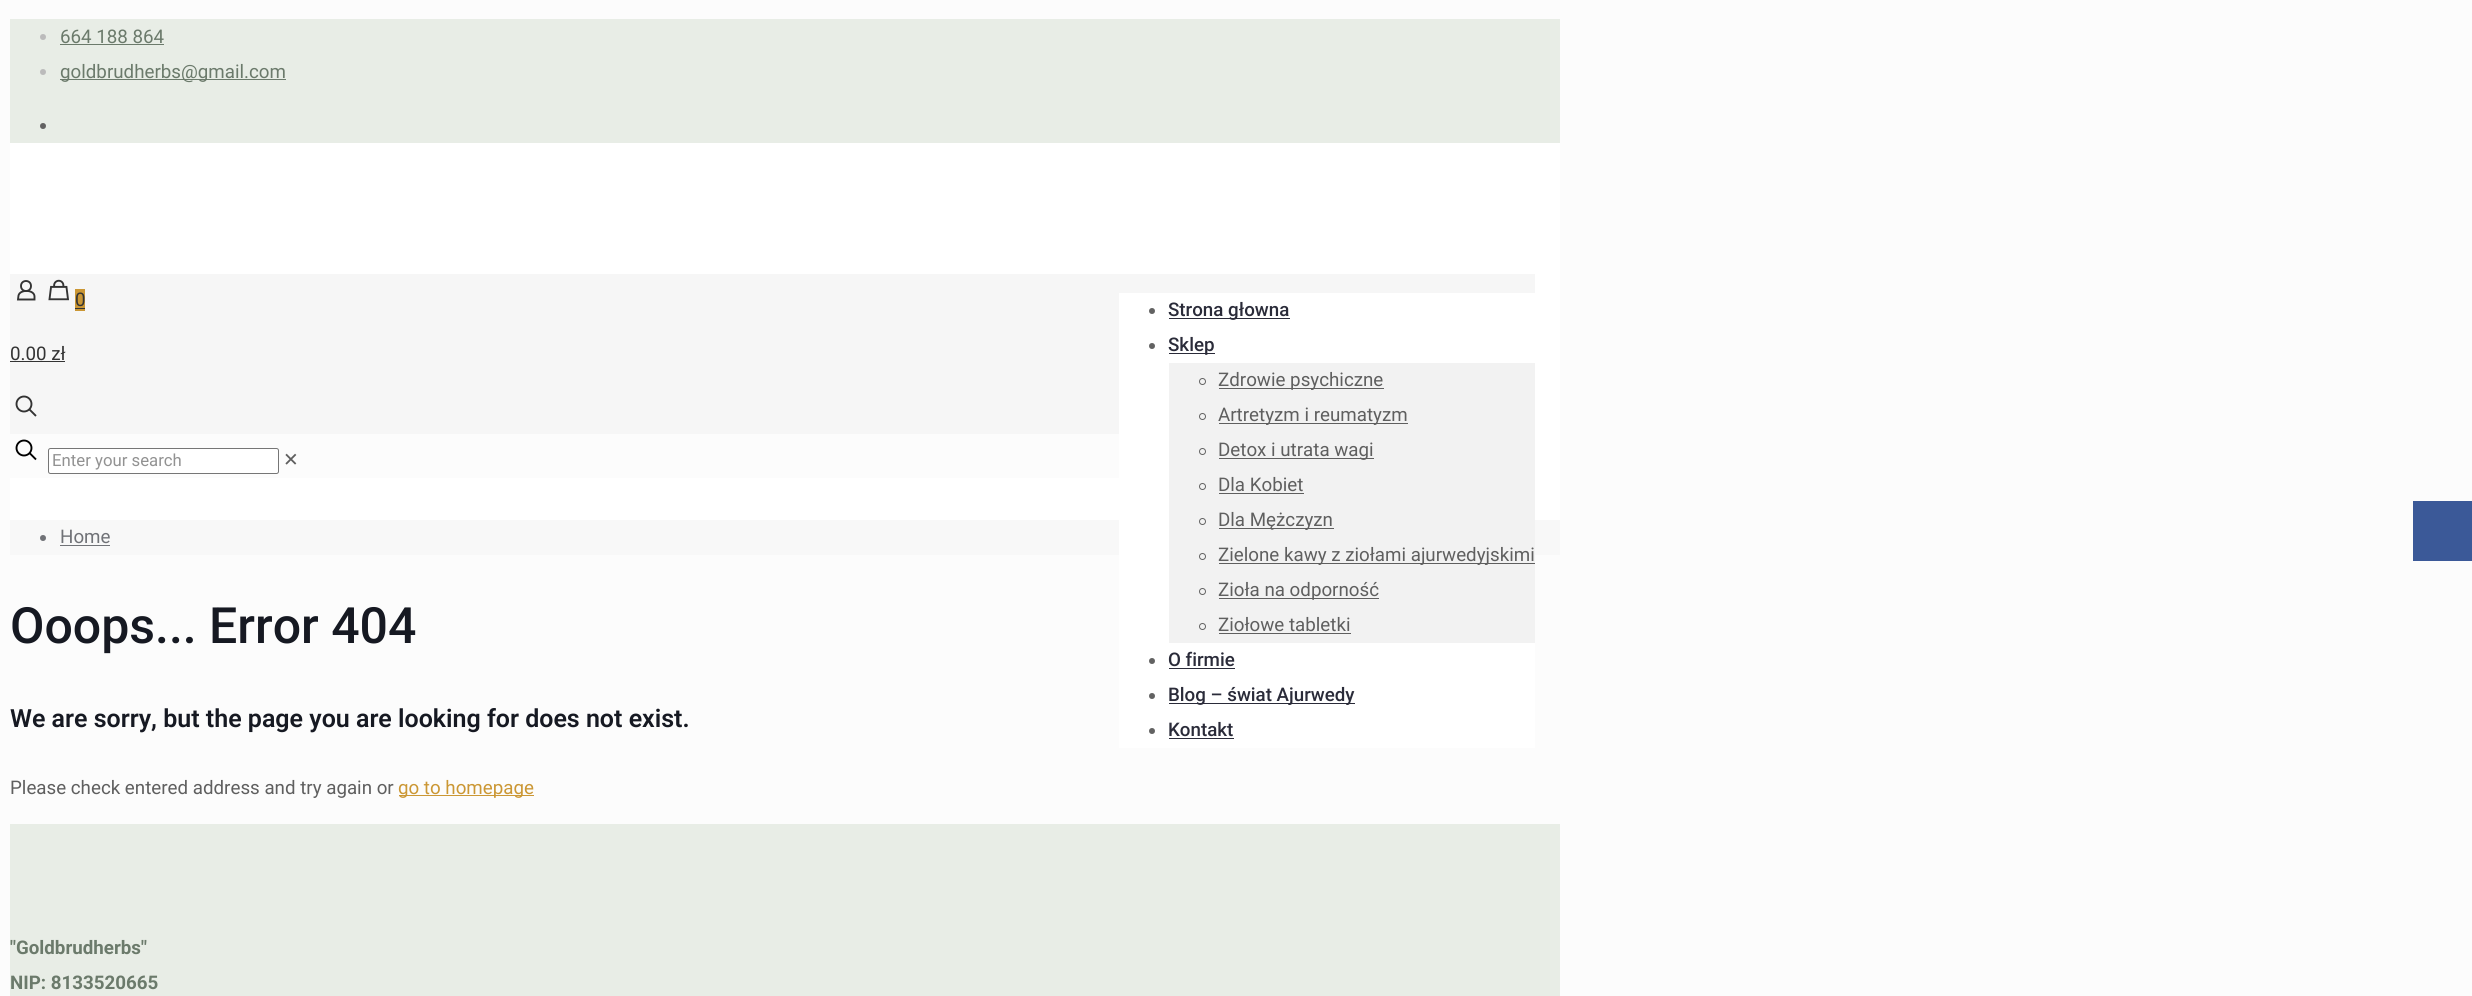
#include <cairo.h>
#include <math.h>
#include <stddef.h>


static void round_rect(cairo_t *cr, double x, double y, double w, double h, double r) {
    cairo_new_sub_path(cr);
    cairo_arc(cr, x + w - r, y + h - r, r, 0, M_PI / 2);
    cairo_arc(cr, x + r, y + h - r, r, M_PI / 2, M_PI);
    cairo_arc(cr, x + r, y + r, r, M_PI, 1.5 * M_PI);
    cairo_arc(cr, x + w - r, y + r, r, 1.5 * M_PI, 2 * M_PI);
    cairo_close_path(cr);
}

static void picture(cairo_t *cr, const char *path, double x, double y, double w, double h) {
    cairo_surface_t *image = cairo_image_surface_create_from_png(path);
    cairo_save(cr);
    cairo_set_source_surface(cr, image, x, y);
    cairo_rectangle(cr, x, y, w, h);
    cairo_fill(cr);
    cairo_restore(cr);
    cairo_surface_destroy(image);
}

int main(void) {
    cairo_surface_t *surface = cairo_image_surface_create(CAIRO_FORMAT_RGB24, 2472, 996);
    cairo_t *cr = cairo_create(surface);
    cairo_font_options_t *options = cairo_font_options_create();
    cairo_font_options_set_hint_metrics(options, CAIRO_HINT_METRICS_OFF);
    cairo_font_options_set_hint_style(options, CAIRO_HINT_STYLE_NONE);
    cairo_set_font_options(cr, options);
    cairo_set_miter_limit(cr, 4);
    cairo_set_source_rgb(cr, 0.988, 0.988, 0.988);
    cairo_paint(cr);
    cairo_set_source_rgb(cr, 1, 1, 1);
    cairo_rectangle(cr, 10, 143, 1550, 377);
    cairo_fill(cr);
    cairo_set_source_rgb(cr, 0.91, 0.929, 0.902);
    cairo_rectangle(cr, 10, 19, 1550, 124);
    cairo_fill(cr);
    cairo_set_source_rgb(cr, 0.733, 0.733, 0.733);
    cairo_arc(cr, 43, 37, 3, 0, 2 * M_PI);
    cairo_fill(cr);
    cairo_select_font_face(cr, "Roboto", CAIRO_FONT_SLANT_NORMAL, CAIRO_FONT_WEIGHT_NORMAL);
    cairo_set_font_size(cr, 18.75);
    cairo_set_source_rgb(cr, 0.42, 0.478, 0.42);
    cairo_move_to(cr, 60, 43);
    cairo_show_text(cr, "664 188 864");
    cairo_rectangle(cr, 60, 44, 104, 1);
    cairo_fill(cr);
    cairo_set_source_rgb(cr, 0.733, 0.733, 0.733);
    cairo_arc(cr, 43, 72, 3, 0, 2 * M_PI);
    cairo_fill(cr);
    cairo_set_source_rgb(cr, 0.42, 0.478, 0.42);
    cairo_rectangle(cr, 60, 79, 226, 1);
    cairo_fill(cr);
    cairo_move_to(cr, 60, 78);
    cairo_show_text(cr, "goldbrudherbs@gmail.com");
    cairo_set_source_rgb(cr, 0.384, 0.384, 0.384);
    cairo_new_path(cr);
    cairo_arc(cr, 43, 126, 3, 0, 2 * M_PI);
    cairo_fill(cr);
    cairo_set_source_rgb(cr, 0.961, 0.961, 0.961);
    cairo_rectangle(cr, 10, 274, 1525, 160);
    cairo_fill(cr);
    cairo_arc(cr, 26, 286, 5, 0, 2 * M_PI);
    cairo_set_source_rgb(cr, 0.2, 0.2, 0.2);
    cairo_set_line_width(cr, 1.9);
    cairo_stroke(cr);
    cairo_new_path(cr);
    cairo_move_to(cr, 34.5, 296.5);
    cairo_line_to(cr, 34.5, 299.5);
    cairo_line_to(cr, 18, 299.5);
    cairo_line_to(cr, 18.5, 295.5);
    cairo_curve_to(cr, 20, 289, 34.5, 289.5, 34.5, 296.5);
    cairo_close_path(cr);
    cairo_stroke(cr);
    picture(cr, "img1.png", 48, 279, 21, 22);
    cairo_set_source_rgb(cr, 0.796, 0.592, 0.204);
    cairo_rectangle(cr, 75, 289, 10, 22);
    cairo_fill(cr);
    cairo_set_source_rgb(cr, 0.2, 0.2, 0.2);
    cairo_move_to(cr, 75, 306);
    cairo_show_text(cr, "0");
    cairo_rectangle(cr, 75, 308, 10, 1);
    cairo_fill(cr);
    cairo_move_to(cr, 10, 360);
    cairo_show_text(cr, "0.00 zł");
    cairo_rectangle(cr, 10, 361, 55, 1);
    cairo_fill(cr);
    cairo_arc(cr, 24, 404, 7.5, 0, 2 * M_PI);
    cairo_stroke(cr);
    cairo_new_path(cr);
    cairo_move_to(cr, 29.5, 409.5);
    cairo_line_to(cr, 36, 416);
    cairo_stroke(cr);
    cairo_set_source_rgb(cr, 0.988, 0.988, 0.988);
    cairo_rectangle(cr, 10, 434, 1109, 44);
    cairo_fill(cr);
    cairo_arc(cr, 24, 448, 7.5, 0, 2 * M_PI);
    cairo_set_source_rgb(cr, 0, 0, 0);
    cairo_stroke(cr);
    cairo_new_path(cr);
    cairo_move_to(cr, 29.5, 453);
    cairo_line_to(cr, 36, 459.5);
    cairo_stroke(cr);
    cairo_set_source_rgb(cr, 1, 1, 1);
    round_rect(cr, 48.5, 448.5, 230, 25, 2);
    cairo_fill_preserve(cr);
    cairo_set_source_rgb(cr, 0.463, 0.463, 0.463);
    cairo_set_line_width(cr, 1);
    cairo_stroke(cr);
    cairo_set_font_size(cr, 16.75);
    cairo_set_source_rgb(cr, 0.573, 0.573, 0.573);
    cairo_move_to(cr, 52, 466);
    cairo_show_text(cr, "Enter your search");
    cairo_select_font_face(cr, "DejaVu Sans", CAIRO_FONT_SLANT_NORMAL, CAIRO_FONT_WEIGHT_NORMAL);
    cairo_set_font_size(cr, 18.75);
    cairo_set_source_rgb(cr, 0.373, 0.373, 0.373);
    cairo_move_to(cr, 283, 466);
    cairo_show_text(cr, "✕");
    cairo_set_source_rgb(cr, 0.969, 0.969, 0.969);
    cairo_rectangle(cr, 10, 520, 1550, 35);
    cairo_fill(cr);
    cairo_set_source_rgb(cr, 1, 1, 1);
    cairo_rectangle(cr, 1119, 293, 416, 455);
    cairo_fill(cr);
    cairo_set_source_rgb(cr, 0.384, 0.384, 0.384);
    cairo_arc(cr, 1152, 311, 3, 0, 2 * M_PI);
    cairo_fill(cr);
    cairo_set_source_rgb(cr, 0.165, 0.169, 0.224);
    cairo_rectangle(cr, 1169, 318, 121, 1);
    cairo_fill(cr);
    cairo_select_font_face(cr, "Roboto Medium", CAIRO_FONT_SLANT_NORMAL, CAIRO_FONT_WEIGHT_NORMAL);
    cairo_move_to(cr, 1168, 316);
    cairo_show_text(cr, "Strona głowna");
    cairo_set_source_rgb(cr, 0.384, 0.384, 0.384);
    cairo_new_path(cr);
    cairo_arc(cr, 1152, 346, 3, 0, 2 * M_PI);
    cairo_fill(cr);
    cairo_set_source_rgb(cr, 0.165, 0.169, 0.224);
    cairo_rectangle(cr, 1169, 353, 46, 1);
    cairo_fill(cr);
    cairo_move_to(cr, 1168, 351);
    cairo_show_text(cr, "Sklep");
    cairo_set_source_rgb(cr, 0.949, 0.949, 0.949);
    cairo_rectangle(cr, 1169, 363, 366, 280);
    cairo_fill(cr);
    cairo_arc(cr, 1202.5, 381.5, 3, 0, 2 * M_PI);
    cairo_set_source_rgb(cr, 0.384, 0.384, 0.384);
    cairo_stroke(cr);
    cairo_set_source_rgb(cr, 0.373, 0.373, 0.373);
    cairo_rectangle(cr, 1219, 388, 165, 1);
    cairo_fill(cr);
    cairo_select_font_face(cr, "Roboto", CAIRO_FONT_SLANT_NORMAL, CAIRO_FONT_WEIGHT_NORMAL);
    cairo_move_to(cr, 1218, 386);
    cairo_show_text(cr, "Zdrowie psychiczne");
    cairo_new_path(cr);
    cairo_arc(cr, 1202.5, 416.5, 3, 0, 2 * M_PI);
    cairo_set_source_rgb(cr, 0.384, 0.384, 0.384);
    cairo_stroke(cr);
    cairo_set_source_rgb(cr, 0.373, 0.373, 0.373);
    cairo_rectangle(cr, 1219, 423, 189, 1);
    cairo_fill(cr);
    cairo_move_to(cr, 1218, 421);
    cairo_show_text(cr, "Artretyzm i reumatyzm");
    cairo_new_path(cr);
    cairo_arc(cr, 1202.5, 451.5, 3, 0, 2 * M_PI);
    cairo_set_source_rgb(cr, 0.384, 0.384, 0.384);
    cairo_stroke(cr);
    cairo_set_source_rgb(cr, 0.373, 0.373, 0.373);
    cairo_rectangle(cr, 1219, 458, 155, 1);
    cairo_fill(cr);
    cairo_move_to(cr, 1218, 456);
    cairo_show_text(cr, "Detox i utrata wagi");
    cairo_new_path(cr);
    cairo_arc(cr, 1202.5, 486.5, 3, 0, 2 * M_PI);
    cairo_set_source_rgb(cr, 0.384, 0.384, 0.384);
    cairo_stroke(cr);
    cairo_set_source_rgb(cr, 0.373, 0.373, 0.373);
    cairo_move_to(cr, 1218, 491);
    cairo_show_text(cr, "Dla Kobiet");
    cairo_rectangle(cr, 1219, 493, 85, 1);
    cairo_fill(cr);
    cairo_arc(cr, 1202.5, 521.5, 3, 0, 2 * M_PI);
    cairo_set_source_rgb(cr, 0.384, 0.384, 0.384);
    cairo_stroke(cr);
    cairo_set_source_rgb(cr, 0.373, 0.373, 0.373);
    cairo_rectangle(cr, 1219, 528, 115, 1);
    cairo_fill(cr);
    cairo_move_to(cr, 1218, 526);
    cairo_show_text(cr, "Dla Mężczyzn");
    cairo_new_path(cr);
    cairo_arc(cr, 1202.5, 556.5, 3, 0, 2 * M_PI);
    cairo_set_source_rgb(cr, 0.384, 0.384, 0.384);
    cairo_stroke(cr);
    cairo_set_source_rgb(cr, 0.373, 0.373, 0.373);
    cairo_rectangle(cr, 1219, 563, 316, 1);
    cairo_fill(cr);
    cairo_move_to(cr, 1218, 561);
    cairo_show_text(cr, "Zielone kawy z ziołami ajurwedyjskimi");
    cairo_new_path(cr);
    cairo_arc(cr, 1202.5, 591.5, 3, 0, 2 * M_PI);
    cairo_set_source_rgb(cr, 0.384, 0.384, 0.384);
    cairo_stroke(cr);
    cairo_set_source_rgb(cr, 0.373, 0.373, 0.373);
    cairo_rectangle(cr, 1219, 598, 160, 1);
    cairo_fill(cr);
    cairo_move_to(cr, 1218, 596);
    cairo_show_text(cr, "Zioła na odporność");
    cairo_new_path(cr);
    cairo_arc(cr, 1202.5, 626.5, 3, 0, 2 * M_PI);
    cairo_set_source_rgb(cr, 0.384, 0.384, 0.384);
    cairo_stroke(cr);
    cairo_set_source_rgb(cr, 0.373, 0.373, 0.373);
    cairo_move_to(cr, 1218, 631);
    cairo_show_text(cr, "Ziołowe tabletki");
    cairo_rectangle(cr, 1219, 633, 132, 1);
    cairo_fill(cr);
    cairo_set_source_rgb(cr, 0.384, 0.384, 0.384);
    cairo_arc(cr, 1152, 661, 3, 0, 2 * M_PI);
    cairo_fill(cr);
    cairo_select_font_face(cr, "Roboto Medium", CAIRO_FONT_SLANT_NORMAL, CAIRO_FONT_WEIGHT_NORMAL);
    cairo_set_source_rgb(cr, 0.165, 0.169, 0.224);
    cairo_move_to(cr, 1168, 666);
    cairo_show_text(cr, "O firmie");
    cairo_rectangle(cr, 1169, 668, 66, 1);
    cairo_fill(cr);
    cairo_set_source_rgb(cr, 0.384, 0.384, 0.384);
    cairo_arc(cr, 1152, 696, 3, 0, 2 * M_PI);
    cairo_fill(cr);
    cairo_set_source_rgb(cr, 0.165, 0.169, 0.224);
    cairo_rectangle(cr, 1169, 703, 186, 1);
    cairo_fill(cr);
    cairo_move_to(cr, 1168, 701);
    cairo_show_text(cr, "Blog – świat Ajurwedy");
    cairo_set_source_rgb(cr, 0.384, 0.384, 0.384);
    cairo_new_path(cr);
    cairo_arc(cr, 1152, 731, 3, 0, 2 * M_PI);
    cairo_fill(cr);
    cairo_set_source_rgb(cr, 0.165, 0.169, 0.224);
    cairo_move_to(cr, 1168, 736);
    cairo_show_text(cr, "Kontakt");
    cairo_rectangle(cr, 1169, 738, 65, 1);
    cairo_fill(cr);
    cairo_set_source_rgb(cr, 0.439, 0.447, 0.467);
    cairo_arc(cr, 43, 538, 3, 0, 2 * M_PI);
    cairo_fill(cr);
    cairo_select_font_face(cr, "Roboto", CAIRO_FONT_SLANT_NORMAL, CAIRO_FONT_WEIGHT_NORMAL);
    cairo_move_to(cr, 60, 543);
    cairo_show_text(cr, "Home");
    cairo_rectangle(cr, 60, 545, 50, 1);
    cairo_fill(cr);
    cairo_select_font_face(cr, "Roboto Medium", CAIRO_FONT_SLANT_NORMAL, CAIRO_FONT_WEIGHT_NORMAL);
    cairo_set_font_size(cr, 50);
    cairo_set_source_rgb(cr, 0.086, 0.098, 0.133);
    cairo_move_to(cr, 10, 643);
    cairo_show_text(cr, "Ooops... Error 404");
    cairo_select_font_face(cr, "Roboto SemiBold", CAIRO_FONT_SLANT_NORMAL, CAIRO_FONT_WEIGHT_NORMAL);
    cairo_set_font_size(cr, 25);
    cairo_move_to(cr, 10, 727);
    cairo_show_text(cr, "We are sorry, but the page you are looking for does not exist.");
    cairo_select_font_face(cr, "Roboto", CAIRO_FONT_SLANT_NORMAL, CAIRO_FONT_WEIGHT_NORMAL);
    cairo_set_font_size(cr, 18.75);
    cairo_set_source_rgb(cr, 0.373, 0.373, 0.373);
    cairo_move_to(cr, 10, 794);
    cairo_show_text(cr, "Please check entered address and try again or");
    cairo_set_source_rgb(cr, 0.796, 0.592, 0.204);
    cairo_rectangle(cr, 399, 795, 135, 1);
    cairo_fill(cr);
    cairo_move_to(cr, 398, 794);
    cairo_show_text(cr, "go to homepage");
    cairo_set_source_rgb(cr, 0.91, 0.929, 0.902);
    cairo_rectangle(cr, 10, 824, 1550, 172);
    cairo_fill(cr);
    cairo_select_font_face(cr, "Roboto", CAIRO_FONT_SLANT_NORMAL, CAIRO_FONT_WEIGHT_BOLD);
    cairo_set_source_rgb(cr, 0.42, 0.478, 0.42);
    cairo_move_to(cr, 10, 954);
    cairo_show_text(cr, "\"Goldbrudherbs\"");
    cairo_move_to(cr, 10, 989);
    cairo_show_text(cr, "NIP: 8133520665");
    cairo_set_source_rgb(cr, 0.231, 0.349, 0.596);
    cairo_rectangle(cr, 2413, 501, 59, 60);
    cairo_fill(cr);
    cairo_surface_write_to_png(surface, "page.png");
    cairo_font_options_destroy(options);
    cairo_destroy(cr);
    cairo_surface_destroy(surface);
    return 0;
}
